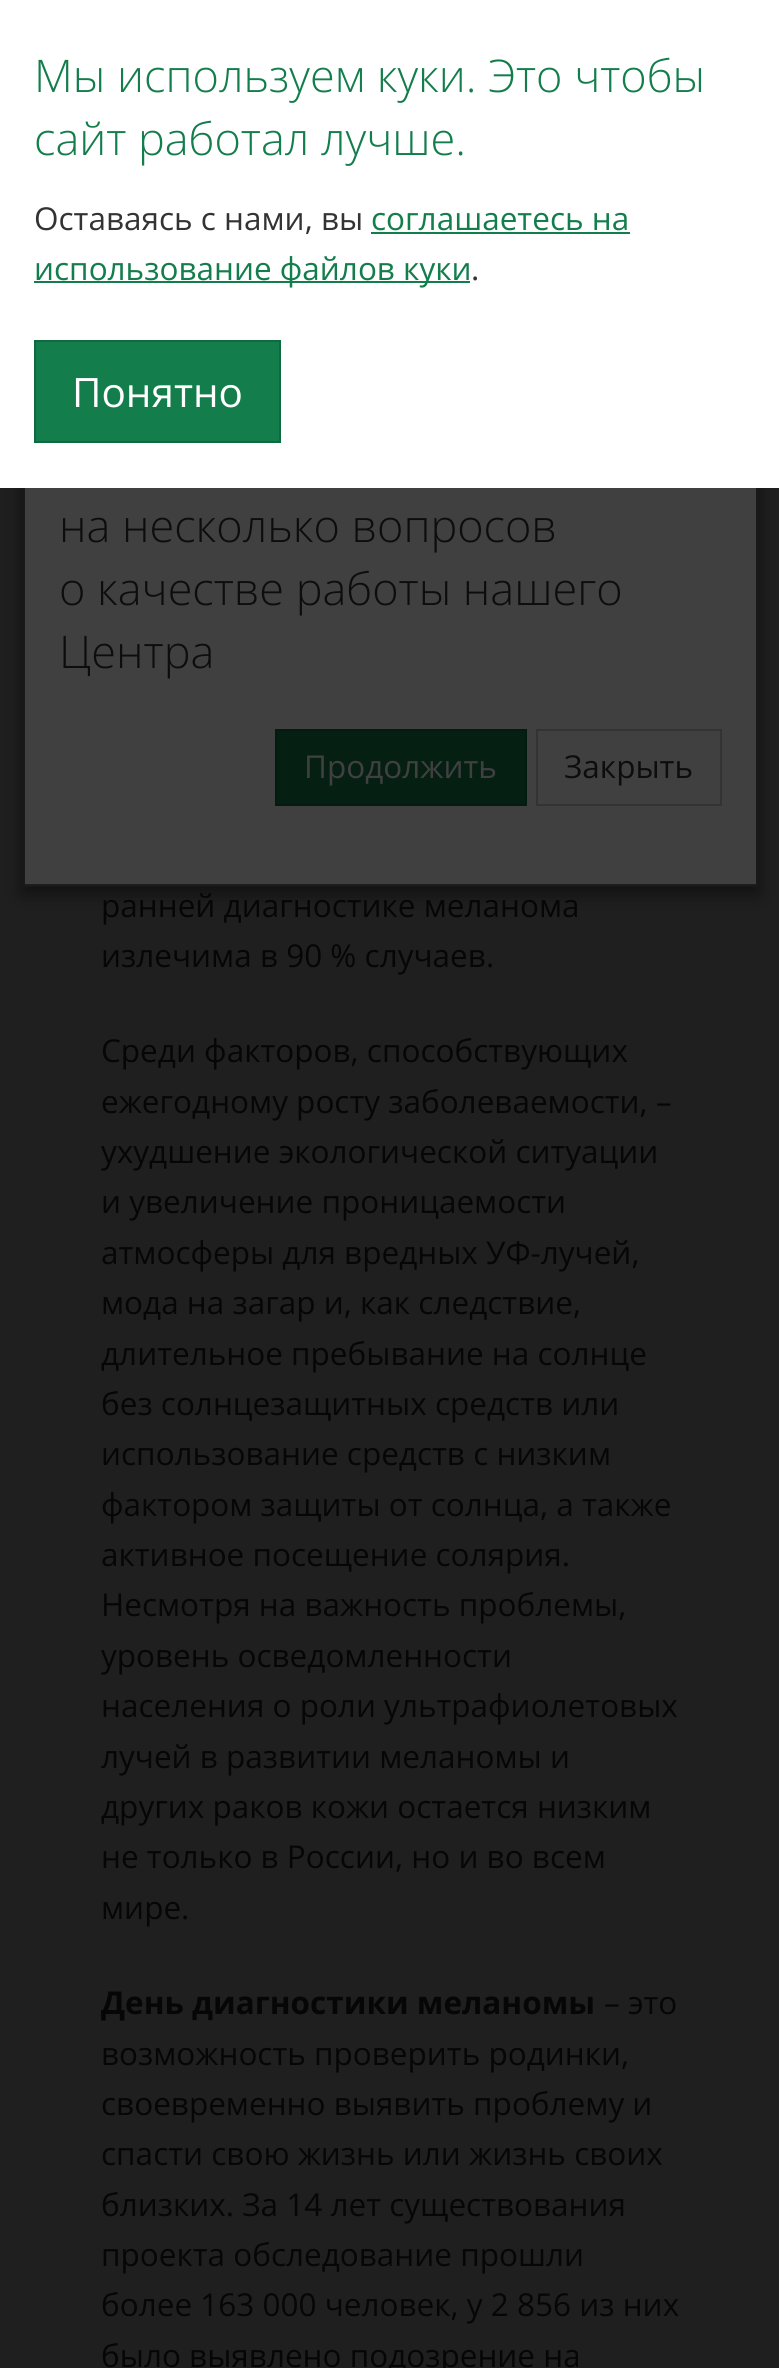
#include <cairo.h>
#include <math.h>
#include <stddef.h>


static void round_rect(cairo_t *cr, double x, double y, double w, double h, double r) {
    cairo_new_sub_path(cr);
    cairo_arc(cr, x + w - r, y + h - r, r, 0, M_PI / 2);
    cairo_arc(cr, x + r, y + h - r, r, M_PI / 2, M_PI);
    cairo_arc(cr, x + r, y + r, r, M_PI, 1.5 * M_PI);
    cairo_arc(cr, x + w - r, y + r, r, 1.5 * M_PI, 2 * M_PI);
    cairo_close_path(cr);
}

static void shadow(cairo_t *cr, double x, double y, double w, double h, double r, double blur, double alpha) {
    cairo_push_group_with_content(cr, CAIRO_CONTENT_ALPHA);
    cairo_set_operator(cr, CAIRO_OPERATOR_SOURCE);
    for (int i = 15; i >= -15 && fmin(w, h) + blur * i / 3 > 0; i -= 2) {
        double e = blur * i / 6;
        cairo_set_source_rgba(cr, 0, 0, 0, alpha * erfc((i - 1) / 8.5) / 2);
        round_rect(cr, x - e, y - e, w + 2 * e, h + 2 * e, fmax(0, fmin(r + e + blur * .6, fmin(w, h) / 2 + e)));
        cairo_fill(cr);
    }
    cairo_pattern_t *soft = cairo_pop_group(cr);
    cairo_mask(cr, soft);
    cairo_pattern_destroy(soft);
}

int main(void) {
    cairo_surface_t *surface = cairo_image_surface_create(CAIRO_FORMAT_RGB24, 779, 2368);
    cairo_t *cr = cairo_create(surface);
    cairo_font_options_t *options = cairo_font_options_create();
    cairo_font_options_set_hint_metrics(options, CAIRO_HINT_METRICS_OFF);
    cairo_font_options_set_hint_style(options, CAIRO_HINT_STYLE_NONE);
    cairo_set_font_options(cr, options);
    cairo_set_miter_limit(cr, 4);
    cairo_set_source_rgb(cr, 0.122, 0.122, 0.122);
    cairo_paint(cr);
    cairo_save(cr);
    cairo_set_fill_rule(cr, CAIRO_FILL_RULE_EVEN_ODD);
    cairo_new_path(cr);
    cairo_move_to(cr, 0, 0);
    cairo_line_to(cr, 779, 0);
    cairo_line_to(cr, 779, 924);
    cairo_line_to(cr, 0, 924);
    cairo_close_path(cr);
    cairo_move_to(cr, 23, 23);
    cairo_line_to(cr, 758, 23);
    cairo_line_to(cr, 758, 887);
    cairo_line_to(cr, 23, 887);
    cairo_close_path(cr);
    cairo_clip(cr);
    cairo_set_source_rgb(cr, 0, 0, 0);
    shadow(cr, 23, 29, 735, 864, 0, 10, 0.5);
    cairo_restore(cr);
    cairo_set_source_rgb(cr, 0.251, 0.251, 0.251);
    cairo_rectangle(cr, 25, 488, 731, 396);
    cairo_fill(cr);
    cairo_rectangle(cr, 24, 24, 733, 862);
    cairo_set_source_rgba(cr, 0, 0, 0, 0.2);
    cairo_stroke(cr);
    cairo_set_source_rgb(cr, 1, 1, 1);
    cairo_rectangle(cr, 0, 0, 779, 488);
    cairo_fill(cr);
    cairo_select_font_face(cr, "Open Sans Light", CAIRO_FONT_SLANT_NORMAL, CAIRO_FONT_WEIGHT_NORMAL);
    cairo_set_font_size(cr, 45);
    cairo_set_source_rgb(cr, 0.075, 0.49, 0.298);
    cairo_move_to(cr, 34, 92);
    cairo_show_text(cr, "Мы используем куки. Это чтобы");
    cairo_move_to(cr, 34, 155);
    cairo_show_text(cr, "сайт работал лучше.");
    cairo_select_font_face(cr, "Open Sans", CAIRO_FONT_SLANT_NORMAL, CAIRO_FONT_WEIGHT_NORMAL);
    cairo_set_font_size(cr, 31.5);
    cairo_set_source_rgb(cr, 0.2, 0.2, 0.2);
    cairo_move_to(cr, 34, 230);
    cairo_show_text(cr, "Оставаясь с нами, вы");
    cairo_set_source_rgb(cr, 0.075, 0.49, 0.298);
    cairo_move_to(cr, 371, 230);
    cairo_show_text(cr, "соглашаетесь на");
    cairo_rectangle(cr, 371, 232, 259, 2);
    cairo_fill(cr);
    cairo_rectangle(cr, 34, 281, 436, 2);
    cairo_fill(cr);
    cairo_move_to(cr, 34, 280);
    cairo_show_text(cr, "использование файлов куки");
    cairo_set_source_rgb(cr, 0.2, 0.2, 0.2);
    cairo_move_to(cr, 471, 280);
    cairo_show_text(cr, ".");
    cairo_set_source_rgb(cr, 0.075, 0.49, 0.298);
    cairo_rectangle(cr, 35, 341, 245, 101);
    cairo_fill_preserve(cr);
    cairo_set_source_rgb(cr, 0.063, 0.416, 0.255);
    cairo_stroke(cr);
    cairo_set_font_size(cr, 40.5);
    cairo_set_source_rgb(cr, 1, 1, 1);
    cairo_move_to(cr, 72, 407);
    cairo_show_text(cr, "Понятно");
    cairo_select_font_face(cr, "Open Sans Light", CAIRO_FONT_SLANT_NORMAL, CAIRO_FONT_WEIGHT_NORMAL);
    cairo_set_font_size(cr, 45);
    cairo_set_source_rgb(cr, 0.051, 0.051, 0.051);
    cairo_move_to(cr, 59, 542);
    cairo_show_text(cr, "на несколько вопросов");
    cairo_move_to(cr, 59, 605);
    cairo_show_text(cr, "о качестве работы нашего");
    cairo_move_to(cr, 59, 668);
    cairo_show_text(cr, "Центра");
    cairo_set_source_rgb(cr, 0.02, 0.122, 0.075);
    cairo_rectangle(cr, 276, 730, 250, 75);
    cairo_fill_preserve(cr);
    cairo_set_source_rgb(cr, 0.016, 0.106, 0.063);
    cairo_stroke(cr);
    cairo_select_font_face(cr, "Open Sans", CAIRO_FONT_SLANT_NORMAL, CAIRO_FONT_WEIGHT_NORMAL);
    cairo_set_font_size(cr, 31.5);
    cairo_set_source_rgb(cr, 0.251, 0.251, 0.251);
    cairo_move_to(cr, 304, 778);
    cairo_show_text(cr, "Продолжить");
    cairo_rectangle(cr, 537, 730, 184, 75);
    cairo_set_source_rgb(cr, 0.2, 0.2, 0.2);
    cairo_stroke(cr);
    cairo_set_source_rgb(cr, 0.051, 0.051, 0.051);
    cairo_move_to(cr, 564, 778);
    cairo_show_text(cr, "Закрыть");
    cairo_set_source_rgb(cr, 0.027, 0.027, 0.027);
    cairo_move_to(cr, 101, 917);
    cairo_show_text(cr, "ранней диагностике меланома");
    cairo_move_to(cr, 101, 967);
    cairo_show_text(cr, "излечима в 90 % случаев.");
    cairo_move_to(cr, 101, 1062);
    cairo_show_text(cr, "Среди факторов, способствующих");
    cairo_move_to(cr, 101, 1113);
    cairo_show_text(cr, "ежегодному росту заболеваемости, –");
    cairo_move_to(cr, 101, 1163);
    cairo_show_text(cr, "ухудшение экологической ситуации");
    cairo_move_to(cr, 101, 1213);
    cairo_show_text(cr, "и увеличение проницаемости");
    cairo_move_to(cr, 101, 1264);
    cairo_show_text(cr, "атмосферы для вредных УФ-лучей,");
    cairo_move_to(cr, 101, 1314);
    cairo_show_text(cr, "мода на загар и, как следствие,");
    cairo_move_to(cr, 101, 1365);
    cairo_show_text(cr, "длительное пребывание на солнце");
    cairo_move_to(cr, 101, 1415);
    cairo_show_text(cr, "без солнцезащитных средств или");
    cairo_move_to(cr, 101, 1465);
    cairo_show_text(cr, "использование средств с низким");
    cairo_move_to(cr, 101, 1516);
    cairo_show_text(cr, "фактором защиты от солнца, а также");
    cairo_move_to(cr, 101, 1566);
    cairo_show_text(cr, "активное посещение солярия.");
    cairo_move_to(cr, 101, 1616);
    cairo_show_text(cr, "Несмотря на важность проблемы,");
    cairo_move_to(cr, 101, 1667);
    cairo_show_text(cr, "уровень осведомленности");
    cairo_move_to(cr, 101, 1717);
    cairo_show_text(cr, "населения о роли ультрафиолетовых");
    cairo_move_to(cr, 101, 1768);
    cairo_show_text(cr, "лучей в развитии меланомы и");
    cairo_move_to(cr, 101, 1818);
    cairo_show_text(cr, "других раков кожи остается низким");
    cairo_move_to(cr, 101, 1868);
    cairo_show_text(cr, "не только в России, но и во всем");
    cairo_move_to(cr, 101, 1919);
    cairo_show_text(cr, "мире.");
    cairo_select_font_face(cr, "Open Sans", CAIRO_FONT_SLANT_NORMAL, CAIRO_FONT_WEIGHT_BOLD);
    cairo_move_to(cr, 101, 2014);
    cairo_show_text(cr, "День диагностики меланомы");
    cairo_select_font_face(cr, "Open Sans", CAIRO_FONT_SLANT_NORMAL, CAIRO_FONT_WEIGHT_NORMAL);
    cairo_move_to(cr, 604, 2014);
    cairo_show_text(cr, "– это");
    cairo_move_to(cr, 101, 2065);
    cairo_show_text(cr, "возможность проверить родинки,");
    cairo_move_to(cr, 101, 2115);
    cairo_show_text(cr, "своевременно выявить проблему и");
    cairo_move_to(cr, 101, 2165);
    cairo_show_text(cr, "спасти свою жизнь или жизнь своих");
    cairo_move_to(cr, 101, 2216);
    cairo_show_text(cr, "близких. За 14 лет существования");
    cairo_move_to(cr, 101, 2266);
    cairo_show_text(cr, "проекта обследование прошли");
    cairo_move_to(cr, 101, 2316);
    cairo_show_text(cr, "более 163 000 человек, у 2 856 из них");
    cairo_move_to(cr, 101, 2367);
    cairo_show_text(cr, "было выявлено подозрение на");
    cairo_surface_write_to_png(surface, "page.png");
    cairo_font_options_destroy(options);
    cairo_destroy(cr);
    cairo_surface_destroy(surface);
    return 0;
}
